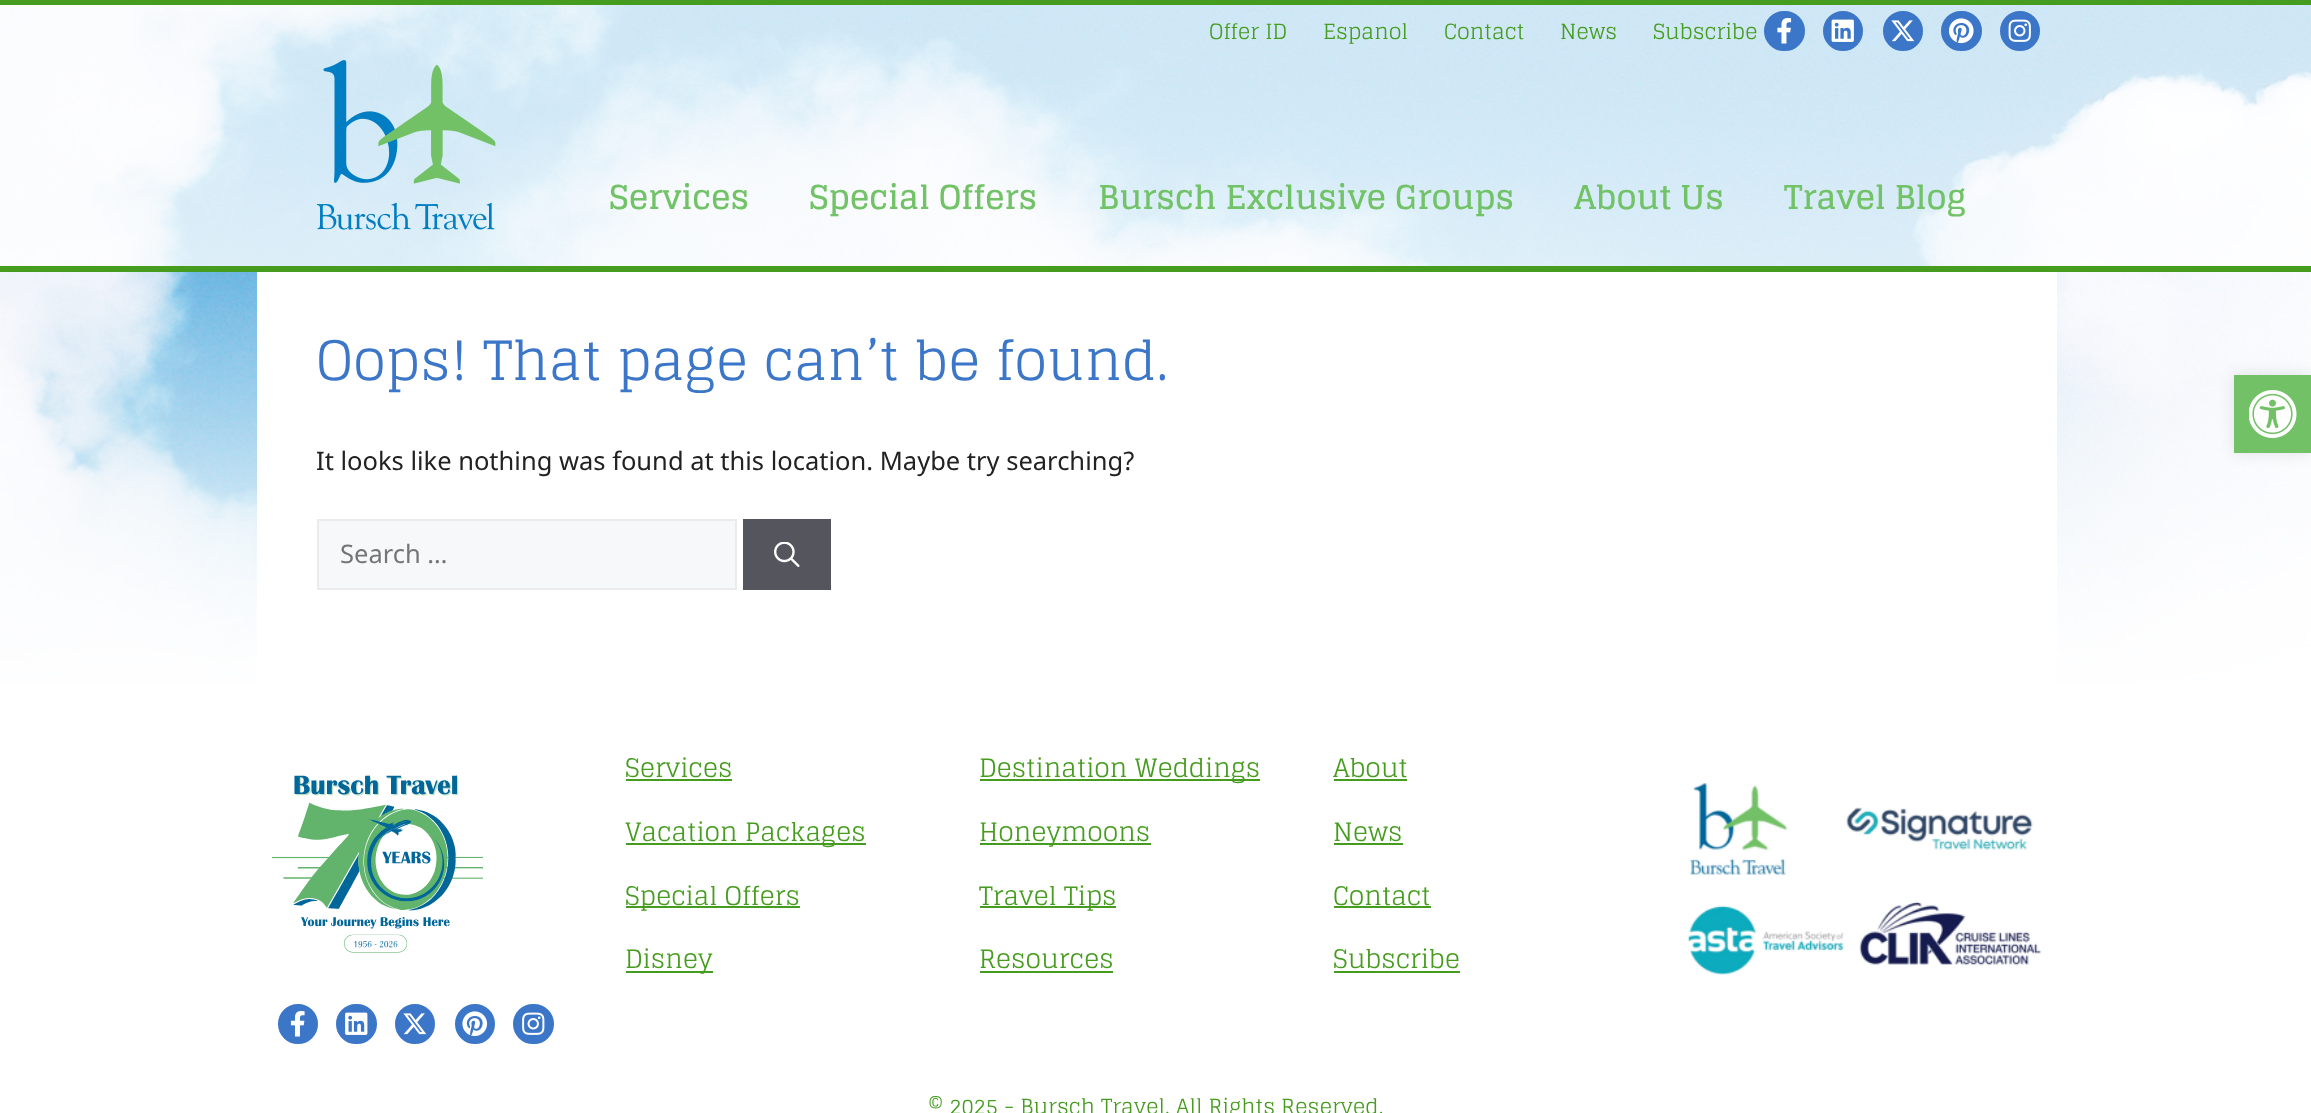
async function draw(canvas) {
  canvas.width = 2311;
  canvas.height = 1113;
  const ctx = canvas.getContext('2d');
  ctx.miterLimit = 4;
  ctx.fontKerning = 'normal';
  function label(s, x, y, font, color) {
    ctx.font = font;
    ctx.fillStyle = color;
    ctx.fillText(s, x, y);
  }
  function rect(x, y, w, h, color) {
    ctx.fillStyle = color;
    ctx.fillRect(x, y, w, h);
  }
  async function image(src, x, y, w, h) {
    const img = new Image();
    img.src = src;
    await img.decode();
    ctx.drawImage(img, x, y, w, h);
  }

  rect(0, 0, 2311, 1113, '#fff');
  await image('assets/img1.png', 0, 5, 2311, 680);
  rect(0, 5, 2311, 88, '#ffffffc4');
  rect(0, 0, 2311, 5, '#469c1f');
  label('Offer ID', 1209, 39, '21px Glegoo', '#469c1f');
  label('Espanol', 1323, 39, '21px Glegoo', '#469c1f');
  label('Contact', 1444, 39, '21px Glegoo', '#469c1f');
  label('News', 1560, 39, '21px Glegoo', '#469c1f');
  label('Subscribe', 1653, 39, '21px Glegoo', '#469c1f');
  ctx.fillStyle = '#3b76c8';
  ctx.beginPath();
  ctx.roundRect(1765, 12, 39, 38, 19);
  ctx.fill();
  ctx.strokeStyle = '#3b76c8';
  ctx.lineWidth = 2;
  ctx.stroke();
  await image('assets/img2.png', 1777, 18, 15, 26);
  ctx.beginPath();
  ctx.arc(1843, 31, 19, 0, 2 * Math.PI);
  ctx.fill();
  ctx.stroke();
  await image('assets/img3.png', 1831, 19, 23, 23);
  ctx.beginPath();
  ctx.arc(1903, 31, 19, 0, 2 * Math.PI);
  ctx.fill();
  ctx.stroke();
  await image('assets/img4.png', 1891, 20, 24, 22);
  ctx.beginPath();
  ctx.roundRect(1942, 12, 39, 38, 19);
  ctx.fill();
  ctx.stroke();
  await image('assets/img5.png', 1949, 18, 25, 26);
  ctx.beginPath();
  ctx.arc(2020, 31, 19, 0, 2 * Math.PI);
  ctx.fill();
  ctx.stroke();
  await image('assets/img6.png', 2008, 19, 23, 23);
  rect(0, 93, 2311, 173, '#ffffffc4');
  rect(0, 266, 2311, 6, '#469c1f');
  await image('assets/img7.png', 317, 60, 179, 170);
  label('Services', 609, 209, 'bold 33px Glegoo', '#72c267');
  label('Special Offers', 809, 209, 'bold 33px Glegoo', '#72c267');
  label('Bursch Exclusive Groups', 1098, 209, 'bold 33px Glegoo', '#72c267');
  label('About Us', 1574, 209, 'bold 33px Glegoo', '#72c267');
  label('Travel Blog', 1784, 209, 'bold 33px Glegoo', '#72c267');
  rect(257, 272, 1800, 413, '#fff');
  label('Oops! That page can’t be found.', 316, 380, '54px Glegoo', '#3b76c8');
  label('It looks like nothing was found at this location. Maybe try searching?', 316, 470, '25.5px Noto Sans', '#222');
  ctx.fillStyle = '#f7f8f9';
  ctx.beginPath();
  ctx.rect(318, 520, 418, 69);
  ctx.fill();
  ctx.strokeStyle = '#ebebeb';
  ctx.stroke();
  label('Search …', 340, 563, '25.5px Noto Sans', '#757575');
  rect(743, 519, 88, 71, '#55555e');
  await image('assets/img8.png', 774, 542, 26, 25);
  ctx.fillStyle = '#0000001a';
  ctx.filter = 'blur(7.5px)';
  ctx.beginPath();
  ctx.rect(2234, 375, 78, 78);
  ctx.fill();
  ctx.filter = 'none';
  rect(2234, 375, 77, 78, '#73c167');
  await image('assets/img9.png', 2249, 390, 48, 48);
  await image('assets/img10.png', 272, 775, 211, 178);
  ctx.fillStyle = '#3b76c8';
  ctx.beginPath();
  ctx.arc(298, 1024, 19, 0, 2 * Math.PI);
  ctx.fill();
  ctx.strokeStyle = '#3b76c8';
  ctx.stroke();
  await image('assets/img11.png', 290, 1011, 15, 26);
  ctx.beginPath();
  ctx.roundRect(337, 1005, 39, 38, 19);
  ctx.fill();
  ctx.stroke();
  await image('assets/img12.png', 345, 1012, 23, 23);
  ctx.beginPath();
  ctx.arc(415, 1024, 19, 0, 2 * Math.PI);
  ctx.fill();
  ctx.stroke();
  await image('assets/img4.png', 403, 1013, 24, 22);
  ctx.beginPath();
  ctx.arc(475, 1024, 19, 0, 2 * Math.PI);
  ctx.fill();
  ctx.stroke();
  await image('assets/img13.png', 462, 1011, 26, 26);
  ctx.beginPath();
  ctx.roundRect(514, 1005, 39, 38, 19);
  ctx.fill();
  ctx.stroke();
  await image('assets/img14.png', 522, 1012, 23, 23);
  label('Services', 625, 777, '25.5px Glegoo', '#469c1f');
  rect(626, 779, 106, 2, '#469c1f');
  rect(626, 843, 240, 2, '#469c1f');
  label('Vacation Packages', 625, 841, '25.5px Glegoo', '#469c1f');
  rect(626, 906, 174, 2, '#469c1f');
  label('Special Offers', 625, 905, '25.5px Glegoo', '#469c1f');
  rect(626, 971, 87, 2, '#469c1f');
  label('Disney', 625, 968, '25.5px Glegoo', '#469c1f');
  rect(980, 779, 280, 2, '#469c1f');
  label('Destination Weddings', 979, 777, '25.5px Glegoo', '#469c1f');
  rect(980, 843, 171, 2, '#469c1f');
  label('Honeymoons', 979, 841, '25.5px Glegoo', '#469c1f');
  rect(980, 906, 136, 2, '#469c1f');
  label('Travel Tips', 979, 905, '25.5px Glegoo', '#469c1f');
  label('Resources', 979, 968, '25.5px Glegoo', '#469c1f');
  rect(980, 971, 133, 2, '#469c1f');
  label('About', 1333, 777, '25.5px Glegoo', '#469c1f');
  rect(1334, 779, 73, 2, '#469c1f');
  label('News', 1333, 841, '25.5px Glegoo', '#469c1f');
  rect(1334, 843, 69, 2, '#469c1f');
  label('Contact', 1333, 905, '25.5px Glegoo', '#469c1f');
  rect(1334, 906, 97, 2, '#469c1f');
  label('Subscribe', 1333, 968, '25.5px Glegoo', '#469c1f');
  rect(1334, 971, 126, 2, '#469c1f');
  await image('assets/img15.png', 1687, 783, 355, 192);
  label('© 2025 - Bursch Travel. All Rights Reserved.', 928, 1114, '21px Glegoo', '#469c1f');
}

draw(document.querySelector('canvas'));
